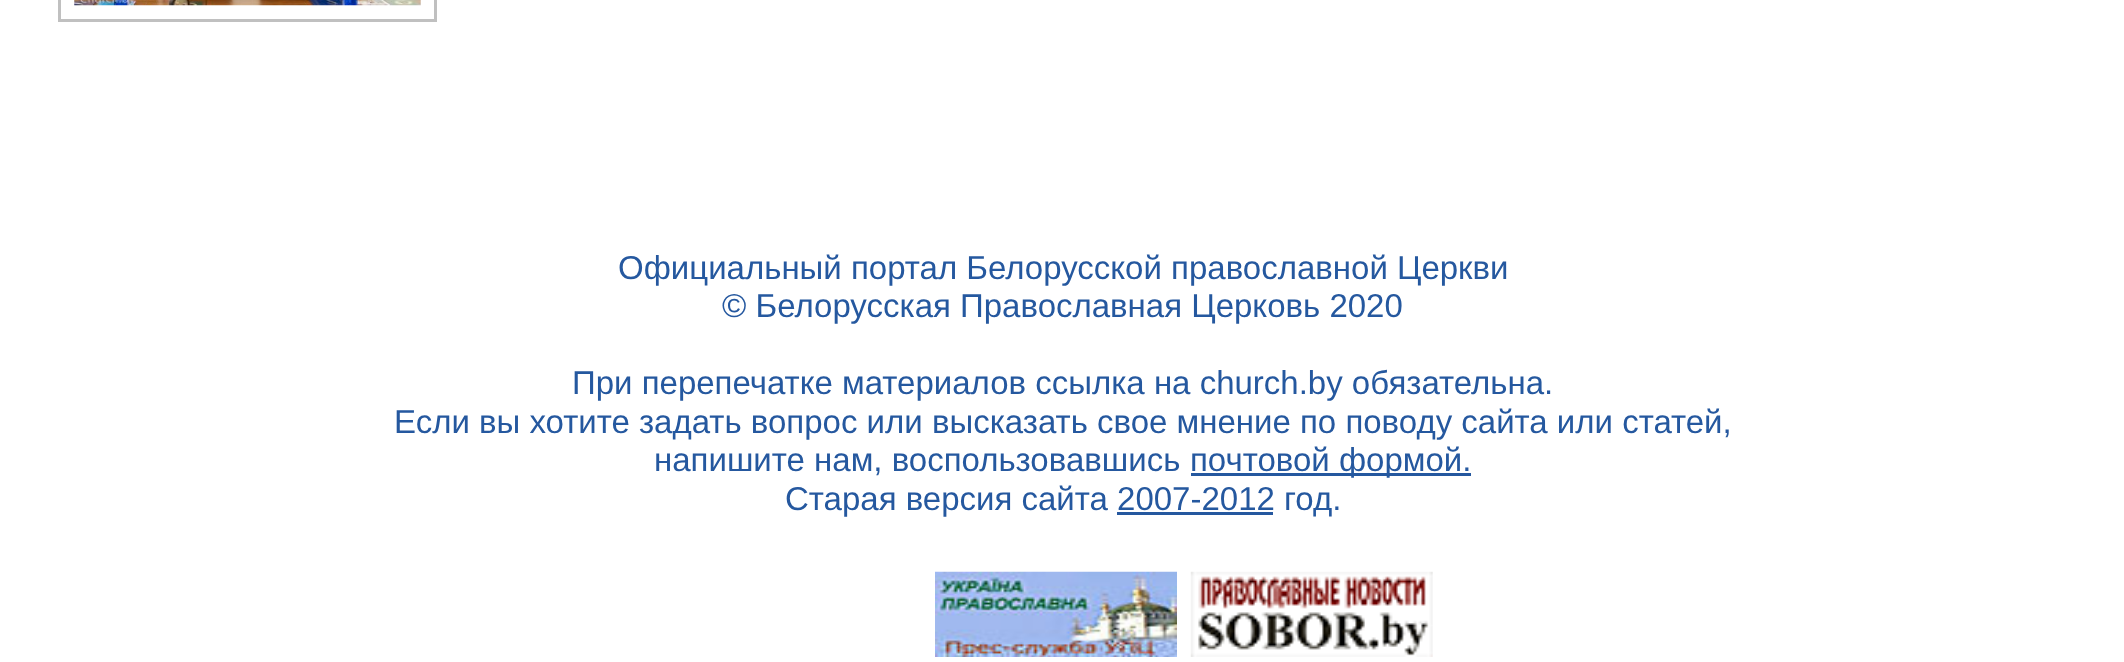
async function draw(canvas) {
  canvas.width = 2124;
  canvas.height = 662;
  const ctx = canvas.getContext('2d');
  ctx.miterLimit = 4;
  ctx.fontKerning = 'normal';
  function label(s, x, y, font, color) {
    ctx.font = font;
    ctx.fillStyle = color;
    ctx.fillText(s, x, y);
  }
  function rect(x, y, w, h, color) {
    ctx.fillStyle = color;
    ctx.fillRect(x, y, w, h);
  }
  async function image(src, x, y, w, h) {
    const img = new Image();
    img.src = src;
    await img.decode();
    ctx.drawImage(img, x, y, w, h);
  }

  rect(0, 0, 2124, 662, '#fff');
  ctx.strokeStyle = '#c0c0c0';
  ctx.lineWidth = 3;
  ctx.strokeRect(59.5, -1.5, 376, 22);
  await image('assets/img1.png', 74, 0, 347, 6);
  label('Официальный портал Белорусской православной Церкви', 618, 279, '33px Liberation Sans', '#25589f');
  label('© Белорусская Православная Церковь 2020', 722, 317, '33px Liberation Sans', '#25589f');
  label('При перепечатке материалов ссылка на church.by обязательна.', 572, 394, '33px Liberation Sans', '#25589f');
  label('Если вы хотите задать вопрос или высказать свое мнение по поводу сайта или статей,', 394, 433, '33px Liberation Sans', '#25589f');
  label('напишите нам, воспользовавшись', 654, 471, '33px Liberation Sans', '#25589f');
  rect(1191, 473, 280, 3, '#25589f');
  label('почтовой формой.', 1190, 471, '33px Liberation Sans', '#25589f');
  label('Старая версия сайта 2007-2012 год.', 785, 510, '33px Liberation Sans', '#25589f');
  rect(1117, 512, 156, 3, '#25589f');
  await image('assets/img2.png', 935, 571, 242, 86);
  await image('assets/img3.png', 1190, 571, 243, 86);
}

draw(document.querySelector('canvas'));
